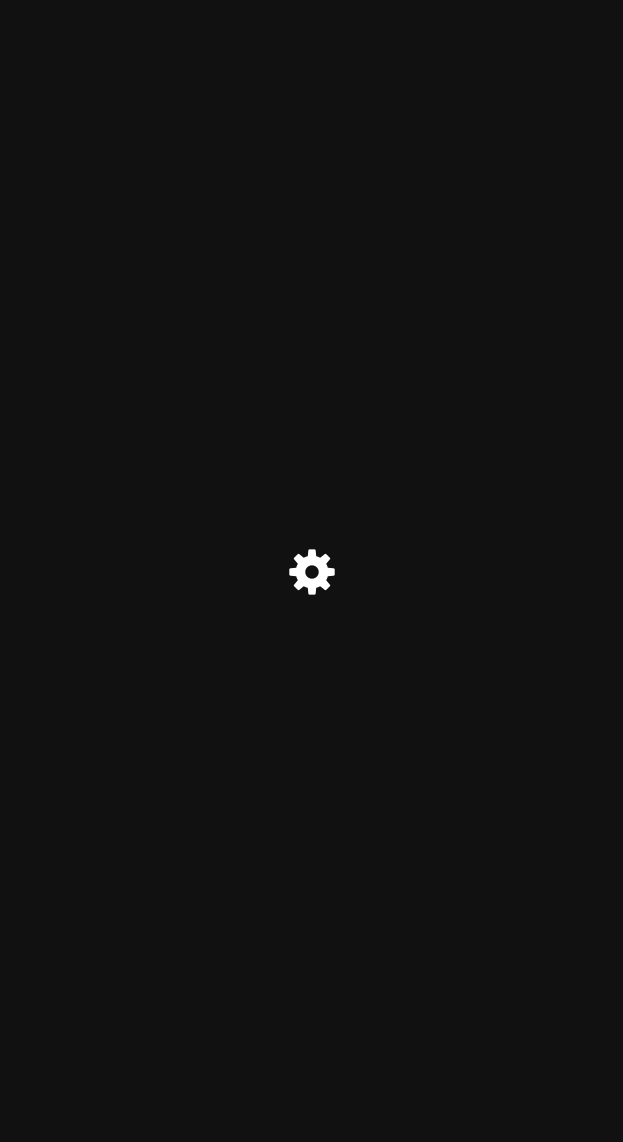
async function draw(canvas) {
  canvas.width = 623;
  canvas.height = 1142;
  const ctx = canvas.getContext('2d');
  ctx.miterLimit = 4;
  ctx.fontKerning = 'normal';
  function rect(x, y, w, h, color) {
    ctx.fillStyle = color;
    ctx.fillRect(x, y, w, h);
  }
  async function image(src, x, y, w, h) {
    const img = new Image();
    img.src = src;
    await img.decode();
    ctx.drawImage(img, x, y, w, h);
  }

  rect(0, 0, 623, 1142, '#111');
  await image('assets/img1.png', 289, 549, 46, 46);
}

draw(document.querySelector('canvas'));
